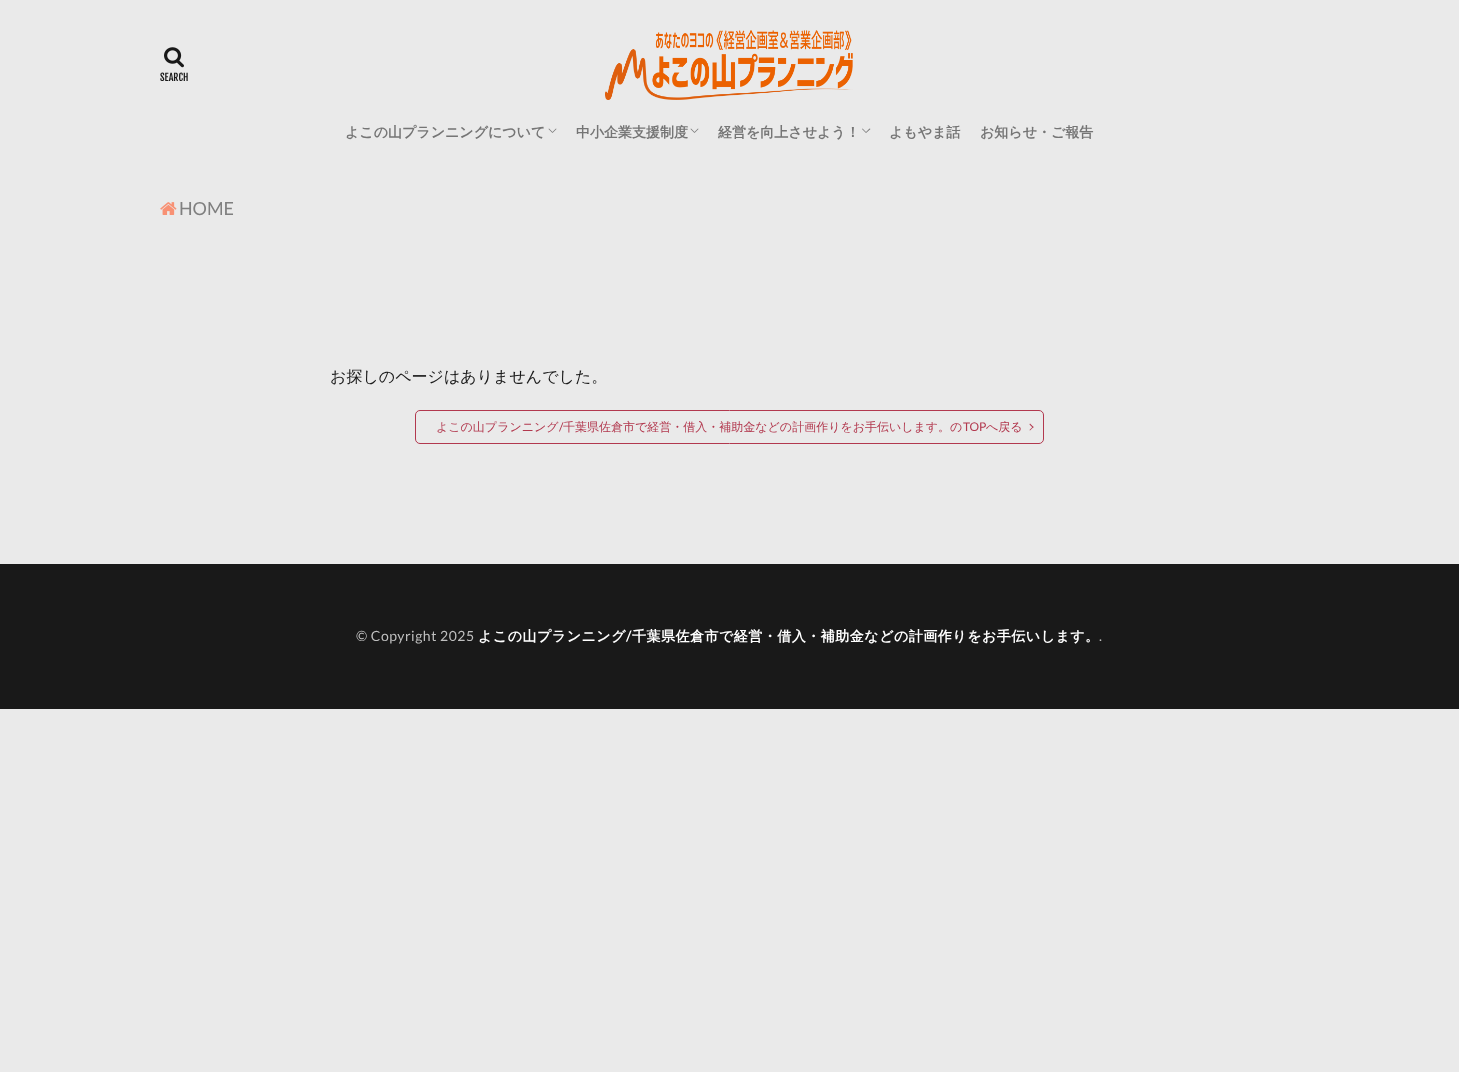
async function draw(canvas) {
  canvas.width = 1459;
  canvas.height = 1072;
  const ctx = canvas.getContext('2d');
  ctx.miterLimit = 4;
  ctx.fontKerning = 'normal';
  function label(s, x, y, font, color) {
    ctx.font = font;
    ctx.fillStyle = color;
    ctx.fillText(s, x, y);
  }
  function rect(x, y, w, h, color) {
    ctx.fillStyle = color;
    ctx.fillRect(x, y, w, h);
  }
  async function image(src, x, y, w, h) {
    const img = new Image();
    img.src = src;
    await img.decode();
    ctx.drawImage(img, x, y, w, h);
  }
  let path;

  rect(0, 0, 1459, 1072, '#eaeaea');
  await image('assets/img1.png', 164, 47, 20, 21);
  label('SEARCH', 160, 81, '10px Fjalla One', '#191919');
  await image('assets/img2.png', 605, 30, 248, 70);
  label('よこの山プランニングについて', 345, 137, 'bold 14px WenQuanYi Zen Hei', '#757575');
  path = new Path2D('M556.5 129L552.5 133V132L556 128.5Z');
  ctx.fill(path);
  ctx.fillStyle = '#00000080';
  path = new Path2D('M552.5 133L548.5 129L549 128.5L552.5 132Z');
  ctx.fill(path);
  label('中小企業支援制度', 576, 137, 'bold 14px WenQuanYi Zen Hei', '#757575');
  path = new Path2D('M698.5 129L694.5 133V132L698 128.5Z');
  ctx.fill(path);
  ctx.fillStyle = '#00000080';
  path = new Path2D('M694.5 133L690.5 129L691 128.5L694.5 132Z');
  ctx.fill(path);
  label('経営を向上させよう！', 718, 137, 'bold 14px WenQuanYi Zen Hei', '#757575');
  path = new Path2D('M870.5 129L866 133V132L869.5 128.5ZM866 133L862 129L862.5 128.5L866 132Z');
  ctx.fill(path);
  label('よもやま話', 889, 137, 'bold 14px WenQuanYi Zen Hei', '#757575');
  label('お知らせ・ご報告', 980, 137, 'bold 14px WenQuanYi Zen Hei', '#757575');
  await image('assets/img3.png', 160, 202, 17, 13);
  label('HOME', 179, 215, '18px Lato', '#7f7f7f');
  label('お探しのページはありませんでした。', 330, 382, '500 16px WenQuanYi Zen Hei', '#191919');
  ctx.beginPath();
  ctx.roundRect(415.5, 410.5, 628, 33, 4.5);
  ctx.strokeStyle = '#b2384e';
  ctx.stroke();
  label('よこの山プランニング', 436, 431, '500 12px WenQuanYi Zen Hei', '#b2384e');
  label('/', 559, 431, '12px Lato', '#b2384e');
  label('千葉県佐倉市で経営・借入・補助金などの計画作りをお手伝いします。の', 563, 431, '500 12px WenQuanYi Zen Hei', '#b2384e');
  label('TOP', 963, 431, '12px Lato', '#b2384e');
  label('へ戻る', 986, 431, '500 12px WenQuanYi Zen Hei', '#b2384e');
  path = new Path2D('M1030 423.5L1033.5 427L1033 428L1029.5 424.5Z');
  ctx.fill(path);
  path = new Path2D('M1033 426.5L1033.5 427L1030 430.5L1029.5 430Z');
  ctx.fill(path);
  rect(0, 564, 1459, 145, '#191919');
  ctx.letterSpacing = '0.5px';
  label('© Copyright 2025', 356, 641, '14px Lato', '#bfbfbf');
  label('よこの山プランニング', 478, 641, 'bold 14px WenQuanYi Zen Hei', '#fff');
  label('/', 626, 641, 'bold 14px Lato', '#fff');
  label('千葉県佐倉市で経営・借入・補助金などの計画作りをお手伝いします。', 632, 641, 'bold 14px WenQuanYi Zen Hei', '#fff');
  label('.', 1099, 641, '14px Lato', '#bfbfbf');
}

draw(document.querySelector('canvas'));
